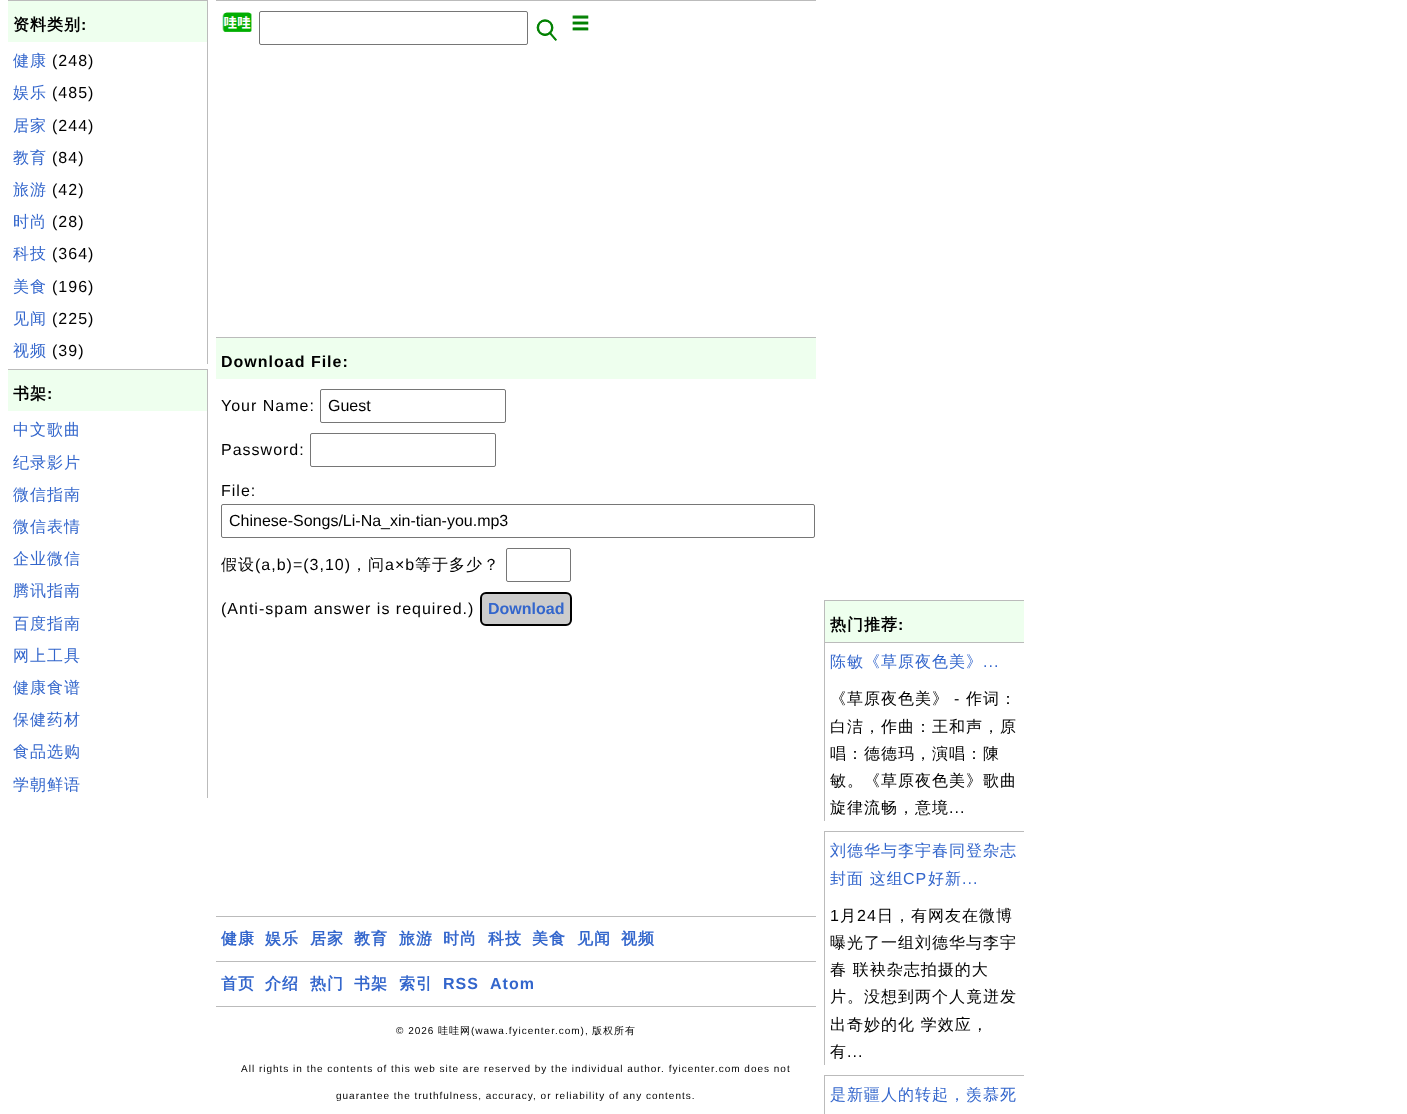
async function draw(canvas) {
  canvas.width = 1407;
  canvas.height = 1114;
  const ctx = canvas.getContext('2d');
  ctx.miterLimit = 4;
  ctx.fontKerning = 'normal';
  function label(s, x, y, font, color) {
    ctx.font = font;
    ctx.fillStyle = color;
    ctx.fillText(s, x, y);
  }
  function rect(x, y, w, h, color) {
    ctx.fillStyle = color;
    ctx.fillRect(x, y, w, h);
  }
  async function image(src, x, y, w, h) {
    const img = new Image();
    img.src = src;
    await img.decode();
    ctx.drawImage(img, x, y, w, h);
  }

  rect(0, 0, 1407, 1114, '#fff');
  rect(8, 0, 200, 1, '#bbb');
  rect(207, 0, 1, 364, '#bbb');
  rect(8, 1, 199, 41, '#efe');
  ctx.letterSpacing = '1px';
  label('资料类别', 13, 30, 'bold 16px WenQuanYi Zen Hei', '#000');
  label(':', 81, 30, 'bold 16px Liberation Sans', '#000');
  label('健康', 13, 66, '500 16px WenQuanYi Zen Hei', '#36c');
  label('(248)', 52, 66, '16px Liberation Sans', '#000');
  label('娱乐', 13, 98, '500 16px WenQuanYi Zen Hei', '#36c');
  label('(485)', 52, 98, '16px Liberation Sans', '#000');
  label('居家', 13, 131, '500 16px WenQuanYi Zen Hei', '#36c');
  label('(244)', 52, 131, '16px Liberation Sans', '#000');
  label('教育', 13, 163, '500 16px WenQuanYi Zen Hei', '#36c');
  label('(84)', 52, 163, '16px Liberation Sans', '#000');
  label('旅游', 13, 195, '500 16px WenQuanYi Zen Hei', '#36c');
  label('(42)', 52, 195, '16px Liberation Sans', '#000');
  label('时尚', 13, 227, '500 16px WenQuanYi Zen Hei', '#36c');
  label('(28)', 52, 227, '16px Liberation Sans', '#000');
  label('科技', 13, 259, '500 16px WenQuanYi Zen Hei', '#36c');
  label('(364)', 52, 259, '16px Liberation Sans', '#000');
  label('美食', 13, 292, '500 16px WenQuanYi Zen Hei', '#36c');
  label('(196)', 52, 292, '16px Liberation Sans', '#000');
  label('见闻', 13, 324, '500 16px WenQuanYi Zen Hei', '#36c');
  label('(225)', 52, 324, '16px Liberation Sans', '#000');
  label('视频', 13, 356, '500 16px WenQuanYi Zen Hei', '#36c');
  label('(39)', 52, 356, '16px Liberation Sans', '#000');
  rect(8, 369, 200, 1, '#bbb');
  rect(207, 369, 1, 429, '#bbb');
  rect(8, 370, 199, 41, '#efe');
  label('书架', 13, 399, 'bold 16px WenQuanYi Zen Hei', '#000');
  label(':', 47, 399, 'bold 16px Liberation Sans', '#000');
  label('中文歌曲', 13, 435, '500 16px WenQuanYi Zen Hei', '#36c');
  label('纪录影片', 13, 468, '500 16px WenQuanYi Zen Hei', '#36c');
  label('微信指南', 13, 500, '500 16px WenQuanYi Zen Hei', '#36c');
  label('微信表情', 13, 532, '500 16px WenQuanYi Zen Hei', '#36c');
  label('企业微信', 13, 564, '500 16px WenQuanYi Zen Hei', '#36c');
  label('腾讯指南', 13, 596, '500 16px WenQuanYi Zen Hei', '#36c');
  label('百度指南', 13, 629, '500 16px WenQuanYi Zen Hei', '#36c');
  label('网上工具', 13, 661, '500 16px WenQuanYi Zen Hei', '#36c');
  label('健康食谱', 13, 693, '500 16px WenQuanYi Zen Hei', '#36c');
  label('保健药材', 13, 725, '500 16px WenQuanYi Zen Hei', '#36c');
  label('食品选购', 13, 757, '500 16px WenQuanYi Zen Hei', '#36c');
  label('学朝鲜语', 13, 790, '500 16px WenQuanYi Zen Hei', '#36c');
  rect(216, 0, 600, 1, '#bbb');
  await image('assets/img1.png', 222, 12, 30, 20);
  ctx.beginPath();
  ctx.roundRect(259.5, 11.5, 268, 33, 1.5);
  ctx.strokeStyle = '#767676';
  ctx.stroke();
  await image('assets/img2.png', 536, 19, 21, 22);
  await image('assets/img3.png', 572, 15, 17, 16);
  rect(216, 337, 600, 1, '#bbb');
  rect(216, 338, 600, 41, '#efe');
  label('Download File:', 221, 367, 'bold 16px Liberation Sans', '#000');
  label('Your Name:', 221, 411, '16px Liberation Sans', '#000');
  ctx.beginPath();
  ctx.roundRect(320.5, 389.5, 185, 33, 1.5);
  ctx.stroke();
  ctx.letterSpacing = '0px';
  label('Guest', 328, 411, '16px Liberation Sans', '#000');
  ctx.letterSpacing = '1px';
  label('Password:', 221, 455, '16px Liberation Sans', '#000');
  ctx.beginPath();
  ctx.roundRect(310.5, 433.5, 185, 33, 1.5);
  ctx.stroke();
  label('File:', 221, 496, '16px Liberation Sans', '#000');
  ctx.beginPath();
  ctx.roundRect(221.5, 504.5, 593, 33, 1.5);
  ctx.stroke();
  ctx.letterSpacing = '0px';
  label('Chinese-Songs/Li-Na_xin-tian-you.mp3', 229, 526, '16px Liberation Sans', '#000');
  ctx.letterSpacing = '1px';
  label('假设', 221, 570, '500 16px WenQuanYi Zen Hei', '#000');
  label('(a,b)=(3,10)', 255, 570, '16px Liberation Sans', '#000');
  label('，问', 351, 570, '500 16px WenQuanYi Zen Hei', '#000');
  label('a×b', 385, 570, '16px Liberation Sans', '#000');
  label('等于多少？', 415, 570, '500 16px WenQuanYi Zen Hei', '#000');
  ctx.beginPath();
  ctx.roundRect(506.5, 548.5, 64, 33, 1.5);
  ctx.stroke();
  label('(Anti-spam answer is required.)', 221, 614, '16px Liberation Sans', '#000');
  ctx.fillStyle = '#ccc';
  ctx.beginPath();
  ctx.roundRect(481, 593, 90, 32, 5);
  ctx.fill();
  ctx.strokeStyle = '#000';
  ctx.lineWidth = 2;
  ctx.stroke();
  ctx.letterSpacing = '0px';
  label('Download', 488, 614, 'bold 16px Liberation Sans', '#36c');
  rect(216, 916, 600, 1, '#bbb');
  ctx.letterSpacing = '1px';
  label('健康', 221, 944, 'bold 16px WenQuanYi Zen Hei', '#36c');
  label('娱乐', 265, 944, 'bold 16px WenQuanYi Zen Hei', '#36c');
  label('居家', 310, 944, 'bold 16px WenQuanYi Zen Hei', '#36c');
  label('教育', 354, 944, 'bold 16px WenQuanYi Zen Hei', '#36c');
  label('旅游', 399, 944, 'bold 16px WenQuanYi Zen Hei', '#36c');
  label('时尚', 443, 944, 'bold 16px WenQuanYi Zen Hei', '#36c');
  label('科技', 488, 944, 'bold 16px WenQuanYi Zen Hei', '#36c');
  label('美食', 532, 944, 'bold 16px WenQuanYi Zen Hei', '#36c');
  label('见闻', 577, 944, 'bold 16px WenQuanYi Zen Hei', '#36c');
  label('视频', 621, 944, 'bold 16px WenQuanYi Zen Hei', '#36c');
  rect(216, 961, 600, 1, '#bbb');
  label('首页', 221, 989, 'bold 16px WenQuanYi Zen Hei', '#36c');
  label('介绍', 265, 989, 'bold 16px WenQuanYi Zen Hei', '#36c');
  label('热门', 310, 989, 'bold 16px WenQuanYi Zen Hei', '#36c');
  label('书架', 354, 989, 'bold 16px WenQuanYi Zen Hei', '#36c');
  label('索引', 399, 989, 'bold 16px WenQuanYi Zen Hei', '#36c');
  label('RSS', 443, 989, 'bold 16px Liberation Sans', '#36c');
  label('Atom', 490, 989, 'bold 16px Liberation Sans', '#36c');
  rect(216, 1006, 600, 1, '#bbb');
  label('© 2026', 396, 1034, '10px Liberation Sans', '#000');
  label('哇哇网', 438, 1034, '500 10px WenQuanYi Zen Hei', '#000');
  label('(wawa.fyicenter.com),', 471, 1034, '10px Liberation Sans', '#000');
  label('版权所有', 592, 1034, '500 10px WenQuanYi Zen Hei', '#000');
  label('All rights in the contents of this web site are reserved by the individual author. fyicenter.com does not', 241, 1072, '10px Liberation Sans', '#000');
  label('guarantee the truthfulness, accuracy, or reliability of any contents.', 336, 1099, '10px Liberation Sans', '#000');
  rect(824, 600, 200, 1, '#bbb');
  rect(824, 600, 1, 42, '#bbb');
  rect(825, 601, 199, 41, '#efe');
  label('热门推荐', 830, 630, 'bold 16px WenQuanYi Zen Hei', '#000');
  label(':', 898, 630, 'bold 16px Liberation Sans', '#000');
  rect(824, 642, 200, 1, '#bbb');
  rect(824, 642, 1, 179, '#bbb');
  label('陈敏《草原夜色美》', 830, 667, '500 16px WenQuanYi Zen Hei', '#36c');
  label('...', 983, 667, '16px Liberation Sans', '#36c');
  label('《草原夜色美》', 830, 704, '500 16px WenQuanYi Zen Hei', '#000');
  label('-', 954, 704, '16px Liberation Sans', '#000');
  label('作词：', 966, 704, '500 16px WenQuanYi Zen Hei', '#000');
  label('白洁，作曲：王和声，原', 830, 732, '500 16px WenQuanYi Zen Hei', '#000');
  label('唱：德德玛，演唱：陳', 830, 759, '500 16px WenQuanYi Zen Hei', '#000');
  label('敏。《草原夜色美》歌曲', 830, 786, '500 16px WenQuanYi Zen Hei', '#000');
  label('旋律流畅，意境', 830, 813, '500 16px WenQuanYi Zen Hei', '#000');
  label('...', 949, 813, '16px Liberation Sans', '#000');
  rect(824, 831, 200, 1, '#bbb');
  rect(824, 831, 1, 234, '#bbb');
  label('刘德华与李宇春同登杂志', 830, 856, '500 16px WenQuanYi Zen Hei', '#36c');
  label('封面 这组', 830, 884, '500 16px WenQuanYi Zen Hei', '#36c');
  label('CP', 903, 884, '16px Liberation Sans', '#36c');
  label('好新', 928, 884, '500 16px WenQuanYi Zen Hei', '#36c');
  label('...', 962, 884, '16px Liberation Sans', '#36c');
  label('1', 830, 921, '16px Liberation Sans', '#000');
  label('月', 840, 921, '500 16px WenQuanYi Zen Hei', '#000');
  label('24', 857, 921, '16px Liberation Sans', '#000');
  label('日，有网友在微博', 877, 921, '500 16px WenQuanYi Zen Hei', '#000');
  label('曝光了一组刘德华与李宇', 830, 948, '500 16px WenQuanYi Zen Hei', '#000');
  label('春 联袂杂志拍摄的大', 830, 975, '500 16px WenQuanYi Zen Hei', '#000');
  label('片。没想到两个人竟迸发', 830, 1002, '500 16px WenQuanYi Zen Hei', '#000');
  label('出奇妙的化 学效应，', 830, 1030, '500 16px WenQuanYi Zen Hei', '#000');
  label('有', 830, 1057, '500 16px WenQuanYi Zen Hei', '#000');
  label('...', 847, 1057, '16px Liberation Sans', '#000');
  rect(824, 1075, 200, 1, '#bbb');
  rect(824, 1075, 1, 39, '#bbb');
  label('是新疆人的转起，羡慕死', 830, 1100, '500 16px WenQuanYi Zen Hei', '#36c');
}

draw(document.querySelector('canvas'));
